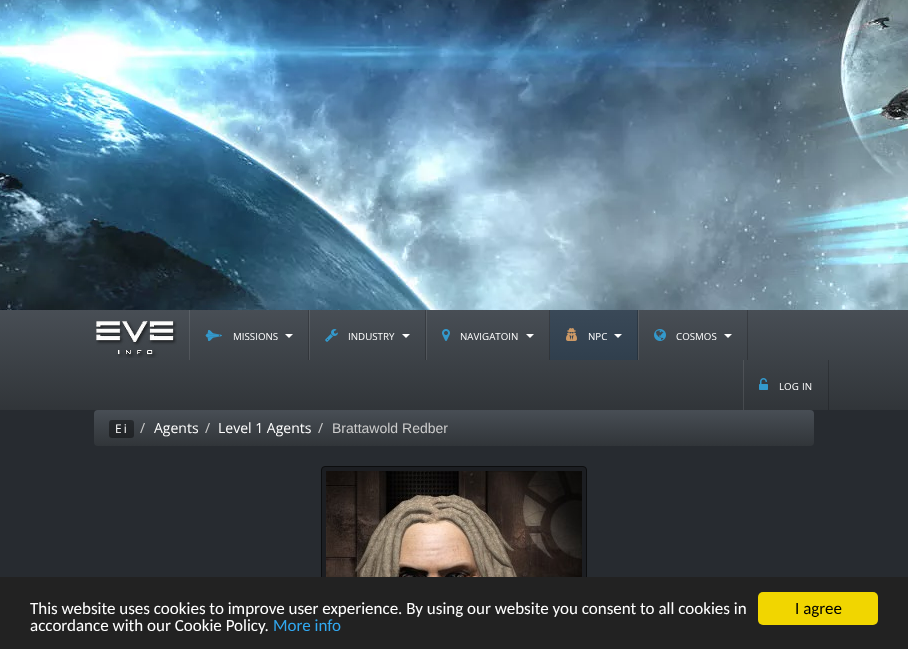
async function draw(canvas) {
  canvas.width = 908;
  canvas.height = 649;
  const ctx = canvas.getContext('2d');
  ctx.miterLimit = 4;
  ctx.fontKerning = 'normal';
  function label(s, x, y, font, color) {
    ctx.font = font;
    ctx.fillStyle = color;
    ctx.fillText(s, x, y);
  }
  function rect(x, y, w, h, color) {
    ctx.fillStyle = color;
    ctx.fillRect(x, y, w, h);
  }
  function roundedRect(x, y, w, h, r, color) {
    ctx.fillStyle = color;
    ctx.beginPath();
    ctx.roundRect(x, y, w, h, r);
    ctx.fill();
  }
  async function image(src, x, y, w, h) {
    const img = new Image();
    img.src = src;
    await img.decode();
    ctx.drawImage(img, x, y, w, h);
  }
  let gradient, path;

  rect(0, 0, 908, 649, '#272b30');
  await image('assets/img1.png', 0, 0, 908, 310);
  gradient = ctx.createLinearGradient(454, 310, 454, 410);
  gradient.addColorStop(0, '#484e55');
  gradient.addColorStop(0.6, '#3a3f44');
  gradient.addColorStop(1, '#313539');
  ctx.fillStyle = gradient;
  ctx.fillRect(0, 310, 908, 100);
  gradient = ctx.createLinearGradient(454, 310, 454, 410);
  gradient.addColorStop(0, '#3a3e44');
  gradient.addColorStop(0.6, '#2e3236');
  gradient.addColorStop(1, '#272a2e');
  ctx.fillStyle = gradient;
  ctx.fillRect(828, 360, 1, 50);
  gradient = ctx.createLinearGradient(454, 310, 454, 410);
  gradient.addColorStop(0, '#5a6066');
  gradient.addColorStop(0.6, '#4e5257');
  gradient.addColorStop(1, '#46494d');
  ctx.fillStyle = gradient;
  ctx.fillRect(638, 310, 1, 50);
  gradient = ctx.createLinearGradient(454, 310, 454, 410);
  gradient.addColorStop(0, '#3a3e44');
  gradient.addColorStop(0.6, '#2e3236');
  gradient.addColorStop(1, '#272a2e');
  ctx.fillStyle = gradient;
  ctx.fillRect(747, 310, 1, 50);
  gradient = ctx.createLinearGradient(454, 310, 454, 410);
  gradient.addColorStop(0, '#3a4958');
  gradient.addColorStop(0.6, '#2e3d4b');
  gradient.addColorStop(1, '#273542');
  ctx.fillStyle = gradient;
  ctx.fillRect(550, 310, 87, 50);
  gradient = ctx.createLinearGradient(454, 310, 454, 410);
  gradient.addColorStop(0, '#2e3a46');
  gradient.addColorStop(0.6, '#25313c');
  gradient.addColorStop(1, '#1f2a35');
  ctx.fillStyle = gradient;
  ctx.fillRect(637, 310, 1, 50);
  gradient = ctx.createLinearGradient(454, 310, 454, 410);
  gradient.addColorStop(0, '#5a6066');
  gradient.addColorStop(0.6, '#4e5257');
  gradient.addColorStop(1, '#46494d');
  ctx.fillStyle = gradient;
  ctx.fillRect(426, 310, 1, 50);
  gradient = ctx.createLinearGradient(454, 310, 454, 410);
  gradient.addColorStop(0, '#3a3e44');
  gradient.addColorStop(0.6, '#2e3236');
  gradient.addColorStop(1, '#272a2e');
  ctx.fillStyle = gradient;
  ctx.fillRect(549, 310, 1, 50);
  gradient = ctx.createLinearGradient(454, 310, 454, 410);
  gradient.addColorStop(0, '#5a6066');
  gradient.addColorStop(0.6, '#4e5257');
  gradient.addColorStop(1, '#46494d');
  ctx.fillStyle = gradient;
  ctx.fillRect(309, 310, 1, 50);
  gradient = ctx.createLinearGradient(454, 310, 454, 410);
  gradient.addColorStop(0, '#3a3e44');
  gradient.addColorStop(0.6, '#2e3236');
  gradient.addColorStop(1, '#272a2e');
  ctx.fillStyle = gradient;
  ctx.fillRect(425, 310, 1, 50);
  gradient = ctx.createLinearGradient(454, 310, 454, 410);
  gradient.addColorStop(0, '#5a6066');
  gradient.addColorStop(0.6, '#4e5257');
  gradient.addColorStop(1, '#46494d');
  ctx.fillStyle = gradient;
  ctx.fillRect(189, 310, 1, 50);
  gradient = ctx.createLinearGradient(454, 310, 454, 410);
  gradient.addColorStop(0, '#3a3e44');
  gradient.addColorStop(0.6, '#2e3236');
  gradient.addColorStop(1, '#272a2e');
  ctx.fillStyle = gradient;
  ctx.fillRect(308, 310, 1, 50);
  await image('assets/img2.png', 96, 321, 81, 37);
  await image('assets/img3.png', 205, 330, 17, 11);
  label('MISSIONS', 233, 340, '9.75px Open Sans', '#fff');
  path = new Path2D('M285 334H293L289 338Z');
  ctx.fill(path);
  await image('assets/img4.png', 325, 329, 13, 13);
  label('INDUSTRY', 348, 340, '9.75px Open Sans', '#fff');
  path = new Path2D('M402 334H410L406 338Z');
  ctx.fill(path);
  await image('assets/img5.png', 442, 329, 8, 12);
  label('NAVIGATOIN', 460, 340, '9.75px Open Sans', '#fff');
  path = new Path2D('M526 334H534L530 338Z');
  ctx.fill(path);
  await image('assets/img6.png', 566, 328, 11, 13);
  label('NPC', 588, 340, '9.75px Open Sans', '#fff');
  path = new Path2D('M614 334H622L618 338Z');
  ctx.fill(path);
  await image('assets/img7.png', 654, 329, 12, 12);
  label('COSMOS', 676, 340, '9.75px Open Sans', '#fff');
  path = new Path2D('M724 334H732L728 338Z');
  ctx.fill(path);
  rect(743, 360, 1, 50, '#ffffff1a');
  await image('assets/img8.png', 759, 378, 9, 12);
  label('LOG', 779, 390, '9.75px Open Sans', '#fff');
  label('IN', 802, 390, '9.75px Open Sans', '#fff');
  gradient = ctx.createLinearGradient(454, 410, 454, 446);
  gradient.addColorStop(0, '#484e55');
  gradient.addColorStop(0.6, '#3a3f44');
  gradient.addColorStop(1, '#313539');
  ctx.fillStyle = gradient;
  ctx.beginPath();
  ctx.roundRect(94, 410, 720, 36, 4);
  ctx.fill();
  roundedRect(109, 420, 25, 18, 3, '#00000066');
  ctx.letterSpacing = '2px';
  label('Ei', 115, 433, '12px Open Sans', '#fff');
  ctx.letterSpacing = '0px';
  label('/', 140, 433, '14px Open Sans', '#ccc');
  label('Agents', 154, 433, '14px Open Sans', '#fff');
  label('/', 205, 433, '14px Open Sans', '#ccc');
  label('Level 1 Agents', 218, 433, '14px Open Sans', '#fff');
  label('/', 318, 433, '14px Open Sans', '#ccc');
  label('Brattawold Redber', 332, 433, '14px Liberation Sans', '#ccc');
  ctx.fillStyle = '#1c1e22';
  ctx.beginPath();
  ctx.roundRect(321.5, 466.5, 265, 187, 3.5);
  ctx.fill();
  ctx.strokeStyle = '#0c0d0e';
  ctx.stroke();
  await image('assets/img9.png', 326, 471, 256, 106);
  rect(0, 577, 908, 72, '#222');
  label('This website uses cookies to improve user experience. By using our website you consent to all cookies in', 30, 614, '17px Carlito', '#fff');
  label('accordance with our Cookie Policy.', 30, 631, '17px Carlito', '#fff');
  label('More info', 273, 631, '17px Carlito', '#31a8f0');
  roundedRect(758, 592, 120, 33, 5, '#f1d600');
  label('I agree', 795, 614, '17px Carlito', '#000');
}

draw(document.querySelector('canvas'));
